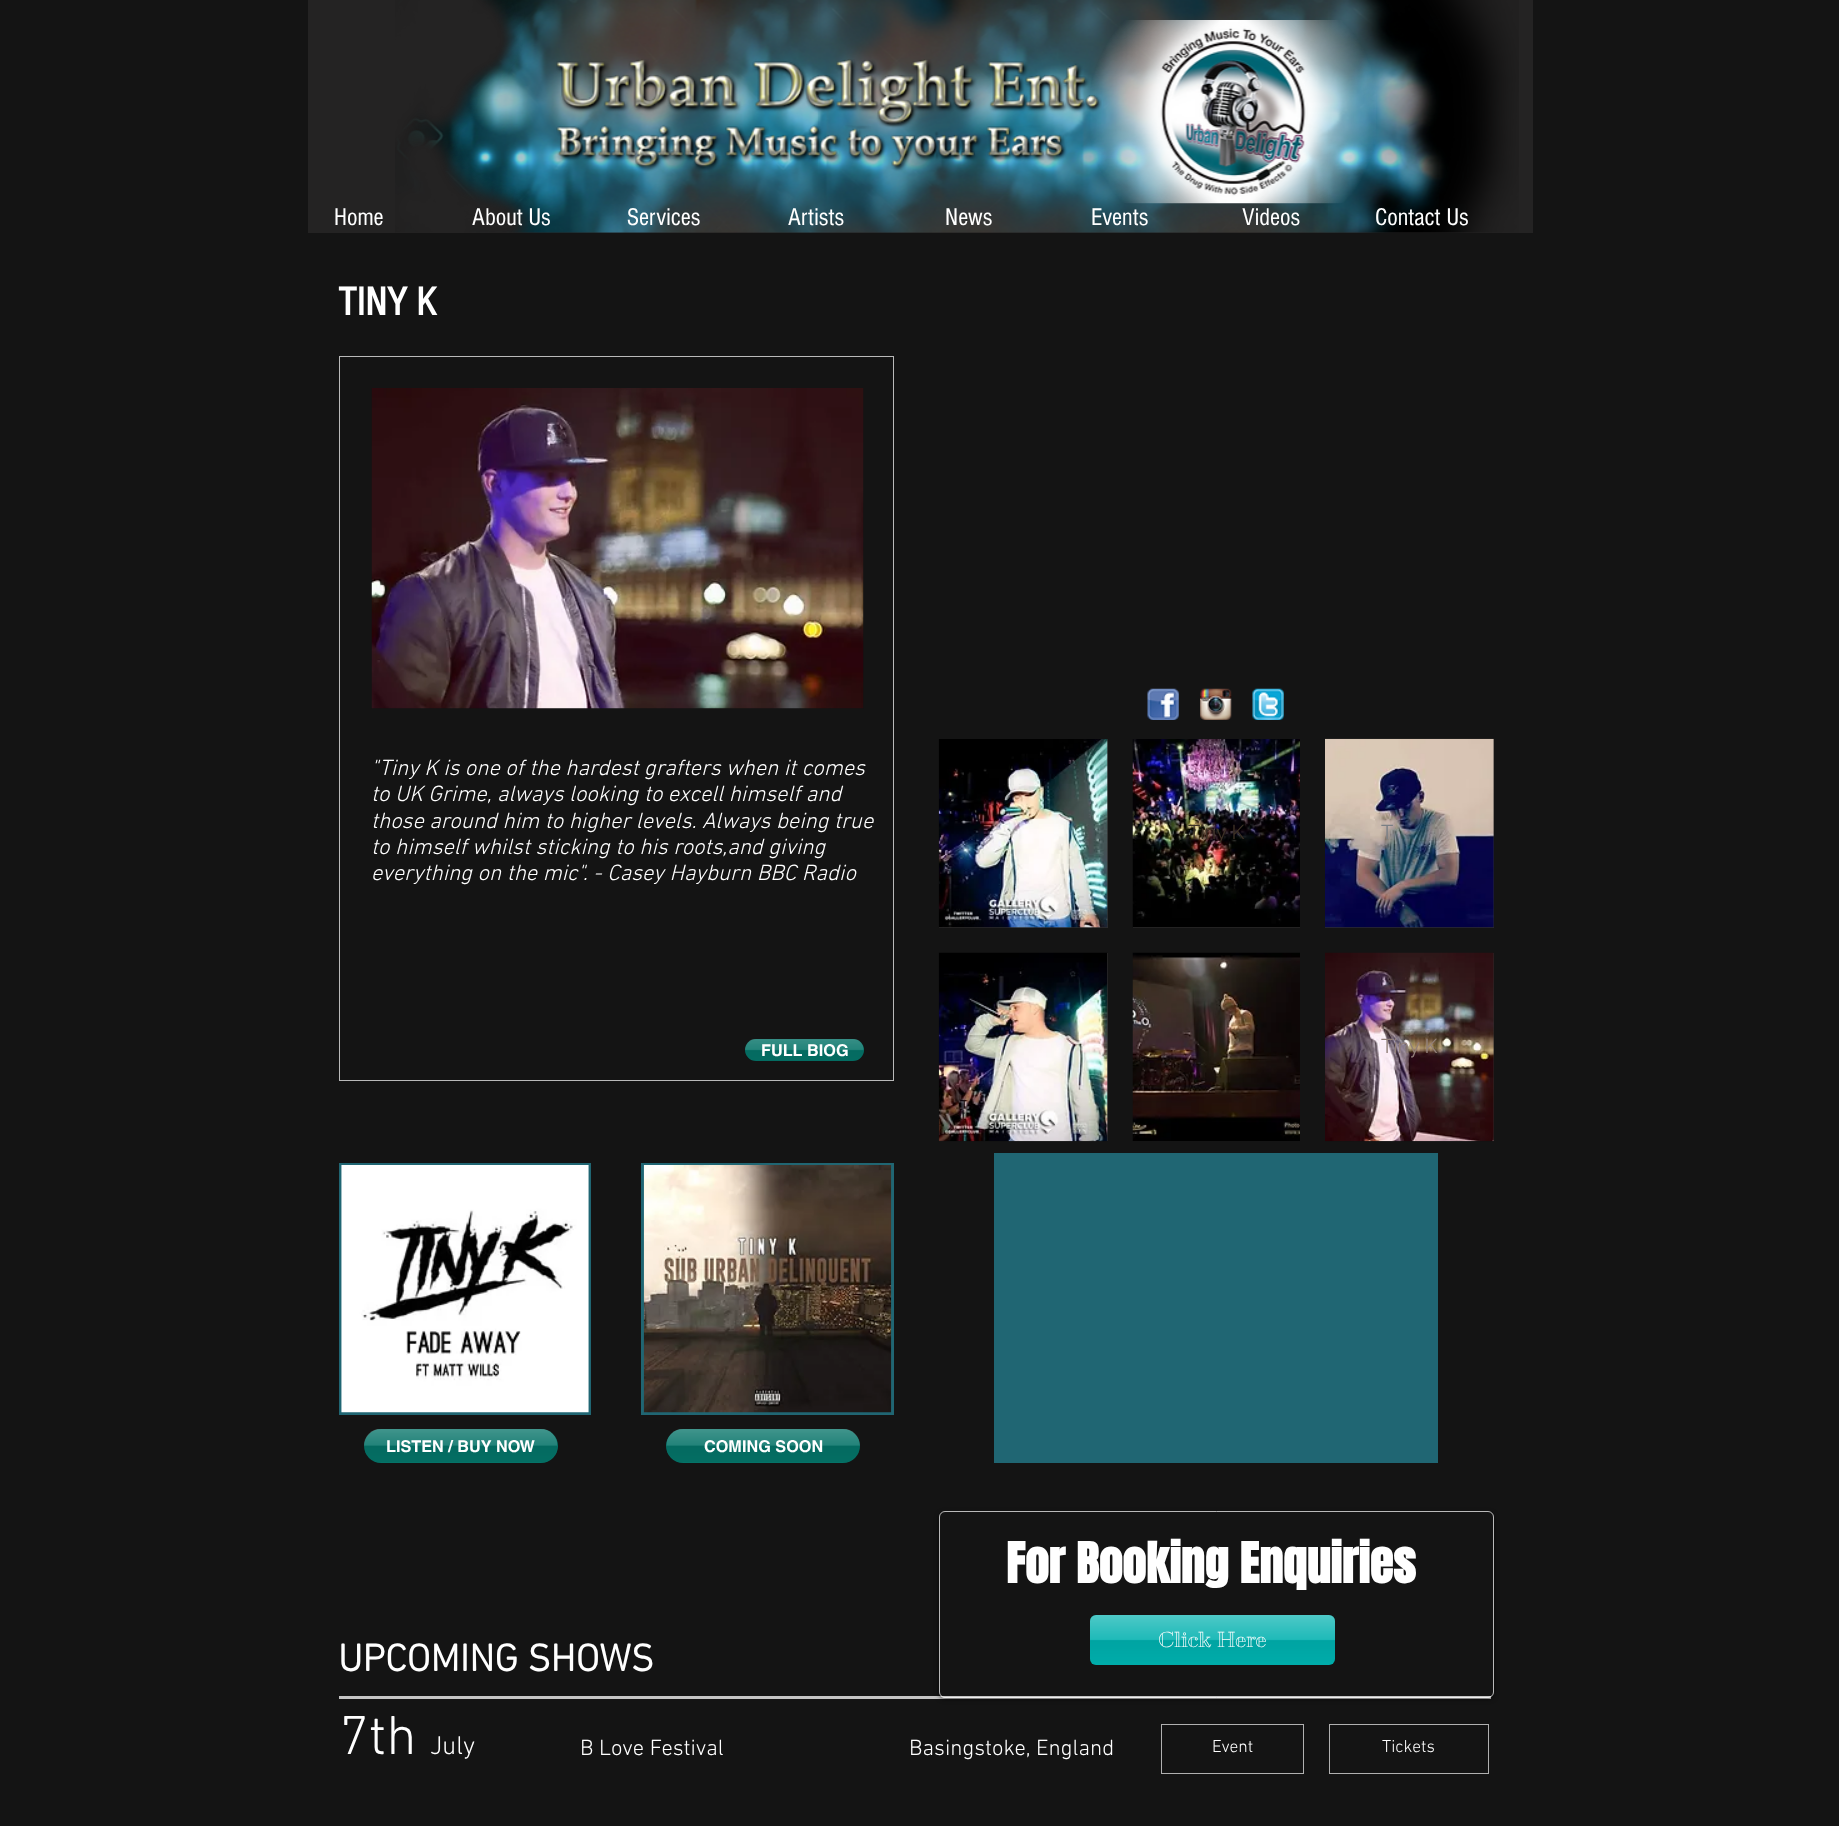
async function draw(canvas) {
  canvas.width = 1839;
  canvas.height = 1826;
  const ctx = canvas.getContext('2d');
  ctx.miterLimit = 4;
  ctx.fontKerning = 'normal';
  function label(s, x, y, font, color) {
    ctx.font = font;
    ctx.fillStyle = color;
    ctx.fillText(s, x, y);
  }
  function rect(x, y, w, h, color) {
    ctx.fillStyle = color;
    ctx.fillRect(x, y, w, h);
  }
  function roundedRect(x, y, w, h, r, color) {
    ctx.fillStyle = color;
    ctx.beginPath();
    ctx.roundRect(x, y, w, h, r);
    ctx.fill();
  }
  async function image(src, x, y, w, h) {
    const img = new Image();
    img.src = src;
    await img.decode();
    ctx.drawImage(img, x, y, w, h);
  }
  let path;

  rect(0, 0, 1839, 1826, '#141414');
  rect(308, 0, 1225, 233, '#242323');
  await image('assets/img1.png', 395, 0, 1124, 233);
  await image('assets/img2.png', 556, 59, 546, 113);
  await image('assets/img3.png', 1090, 20, 286, 184);
  label('Home', 334, 225, '25px "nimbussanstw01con"', '#fff');
  label('About Us', 472, 225, '25px "nimbussanstw01con"', '#fff');
  label('Services', 627, 225, '25px "nimbussanstw01con"', '#fff');
  label('Artists', 788, 225, '25px "nimbussanstw01con"', '#fff');
  label('News', 945, 225, '25px "nimbussanstw01con"', '#fff');
  label('Events', 1091, 225, '25px "nimbussanstw01con"', '#fff');
  label('Videos', 1242, 225, '25px "nimbussanstw01con"', '#fff');
  label('Contact Us', 1375, 225, '25px "nimbussanstw01con"', '#fff');
  label('TINY K', 338, 315, 'bold 41px "nimbussanstw01con"', '#fff');
  await image('assets/img4.png', 1147, 688, 32, 32);
  await image('assets/img5.png', 1200, 688, 32, 32);
  await image('assets/img6.png', 1252, 688, 32, 32);
  ctx.strokeStyle = '#b9b9b9';
  ctx.strokeRect(339.5, 356.5, 554, 724);
  await image('assets/img7.png', 371, 388, 493, 321);
  label('"Tiny K is one of the hardest grafters when it comes', 371, 775, 'italic 300 22.5px "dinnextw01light"', '#fff');
  label('to UK Grime, always looking to excell himself and', 371, 801, 'italic 300 22.5px "dinnextw01light"', '#fff');
  label('those around him to higher levels. Always being true', 371, 828, 'italic 300 22.5px "dinnextw01light"', '#fff');
  label('to himself whilst sticking to his roots,and giving', 371, 854, 'italic 300 22.5px "dinnextw01light"', '#fff');
  label('everything on the mic". - Casey Hayburn BBC Radio', 371, 880, 'italic 300 22.5px "dinnextw01light"', '#fff');
  roundedRect(745, 1039, 119, 22, 11, '#057368');
  await image('assets/img8.png', 745, 1039, 119, 22);
  label('FULL BIOG', 761, 1056, 'bold 16.25px helvetica', '#fff');
  rect(939, 739, 169, 189, '#2f2e2e');
  await image('assets/img9.png', 938, 739, 170, 189);
  rect(1133, 927, 167, 1, '#2f2e2e');
  await image('assets/img10.png', 1132, 739, 168, 189);
  label('Tiny K', 1188, 839, '20px Raleway', '#3d3126');
  rect(1325, 739, 169, 189, '#2f2e2e');
  await image('assets/img11.png', 1325, 738, 169, 190);
  label('T', 1381, 839, '20px Raleway', '#797f85');
  rect(1107, 953, 1, 188, '#2f2e2e');
  await image('assets/img12.png', 938, 952, 170, 190);
  await image('assets/img13.png', 1132, 952, 168, 189);
  rect(1493, 953, 1, 188, '#2f2e2e');
  await image('assets/img14.png', 1325, 952, 169, 190);
  label('Tiny K', 1381, 1053, '20px Raleway', '#928079');
  rect(339, 1163, 252, 252, '#206673');
  await image('assets/img15.png', 341, 1165, 248, 248);
  roundedRect(364, 1429, 194, 34, 17, '#057368');
  await image('assets/img16.png', 364, 1429, 193, 33);
  label('LISTEN / BUY NOW', 386, 1452, 'bold 16.25px helvetica', '#fff');
  rect(641, 1163, 253, 252, '#206673');
  await image('assets/img17.png', 643, 1165, 249, 248);
  roundedRect(666, 1429, 194, 34, 17, '#057368');
  await image('assets/img18.png', 666, 1429, 194, 33);
  label('COMING SOON', 704, 1452, 'bold 16.25px helvetica', '#fff');
  rect(994, 1153, 444, 310, '#206673');
  rect(339, 1696, 1152, 3, '#c4c4c4');
  ctx.save();
  path = new Path2D('M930 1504H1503V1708H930ZM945 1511H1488C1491.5 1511 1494 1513.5 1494 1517V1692C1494 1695.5 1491.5 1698 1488 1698H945C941.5 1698 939 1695.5 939 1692V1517C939 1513.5 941.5 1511 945 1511Z');
  ctx.clip(path, 'evenodd');
  ctx.fillStyle = '#00000099';
  ctx.filter = 'blur(2.5px)';
  ctx.beginPath();
  ctx.roundRect(939, 1513, 555, 186, 6);
  ctx.fill();
  ctx.filter = 'none';
  ctx.restore();
  ctx.beginPath();
  ctx.roundRect(939.5, 1511.5, 554, 186, 5.5);
  ctx.strokeStyle = '#ffffffb3';
  ctx.stroke();
  label('For Booking Enquiries', 1006, 1583, 'bold 47.5px Anton', '#fff');
  roundedRect(1090, 1615, 245, 50, 6, '#01b1af');
  await image('assets/img19.png', 1090, 1615, 245, 50);
  label('Click Here', 1158, 1647, 'bold 20px "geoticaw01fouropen"', '#fff');
  label('UPCOMING SHOWS', 338, 1671, 'bold 38.75px "dinnextw01light"', '#fff');
  label('7th', 339, 1754, '300 56px "dinnextw01light"', '#fff');
  label('July', 430, 1754, '300 26px "dinnextw01light"', '#fff');
  label('B Love Festival', 580, 1755, '300 22.5px "dinnextw01light"', '#fff');
  label('Basingstoke, England', 909, 1755, '300 22.5px "dinnextw01light"', '#fff');
  ctx.strokeStyle = '#b1b1b1';
  ctx.strokeRect(1161.5, 1724.5, 142, 49);
  label('Event', 1212, 1752, '300 17.5px "dinnextw01light"', '#fff');
  ctx.strokeRect(1329.5, 1724.5, 159, 49);
  label('Tickets', 1382, 1752, '300 17.5px "dinnextw01light"', '#fff');
}

draw(document.querySelector('canvas'));
